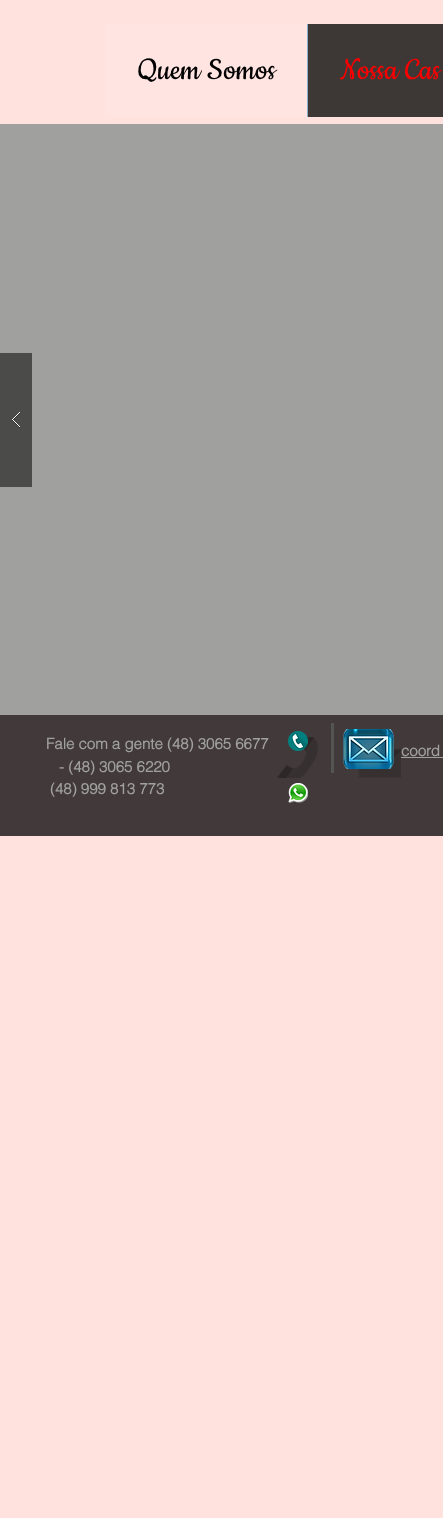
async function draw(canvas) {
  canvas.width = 443;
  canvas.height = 1518;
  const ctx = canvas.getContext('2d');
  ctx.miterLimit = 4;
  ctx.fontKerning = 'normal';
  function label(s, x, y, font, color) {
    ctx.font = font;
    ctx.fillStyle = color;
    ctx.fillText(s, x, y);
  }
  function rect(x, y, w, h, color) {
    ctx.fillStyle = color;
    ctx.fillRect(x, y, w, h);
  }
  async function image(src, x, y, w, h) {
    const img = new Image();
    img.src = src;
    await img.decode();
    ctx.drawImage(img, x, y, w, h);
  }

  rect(0, 0, 443, 1518, '#ffe1de');
  rect(105, 24, 202, 93, '#ffe4e1');
  label('Quem Somos', 137, 79, '35px Cookie', '#000');
  rect(308, 24, 135, 93, '#3d3736');
  rect(307, 24, 1, 93, '#87b1cb');
  label('Nossa Cas', 340, 79, '35px Cookie', '#fa0000');
  rect(0, 124, 443, 591, '#a0a09f');
  rect(0, 353, 32, 134, '#4b4b4a');
  await image('assets/img1.png', 12, 412, 8, 16);
  rect(0, 715, 443, 121, '#423a3a');
  rect(331, 723, 3, 50, '#545454');
  label('Fale com a gente (48) 3065 6677', 46, 749, 'bold 15px helvetica', '#a0a09f');
  label('- (48) 3065 6220', 59, 772, 'bold 15px helvetica', '#a0a09f');
  label('(48) 999 813 773', 50, 794, 'bold 15px helvetica', '#a0a09f');
  await image('assets/img4.png', 277, 737, 41, 41);
  await image('assets/img2.png', 288, 731, 20, 20);
  await image('assets/img5.png', 358, 749, 43, 29);
  await image('assets/img3.png', 343, 729, 51, 40);
  label('coord', 401, 756, 'bold 15px helvetica', '#a0a09f');
  rect(401, 757, 42, 1, '#a0a09f');
  await image('assets/img6.png', 288, 783, 20, 20);
}

draw(document.querySelector('canvas'));
